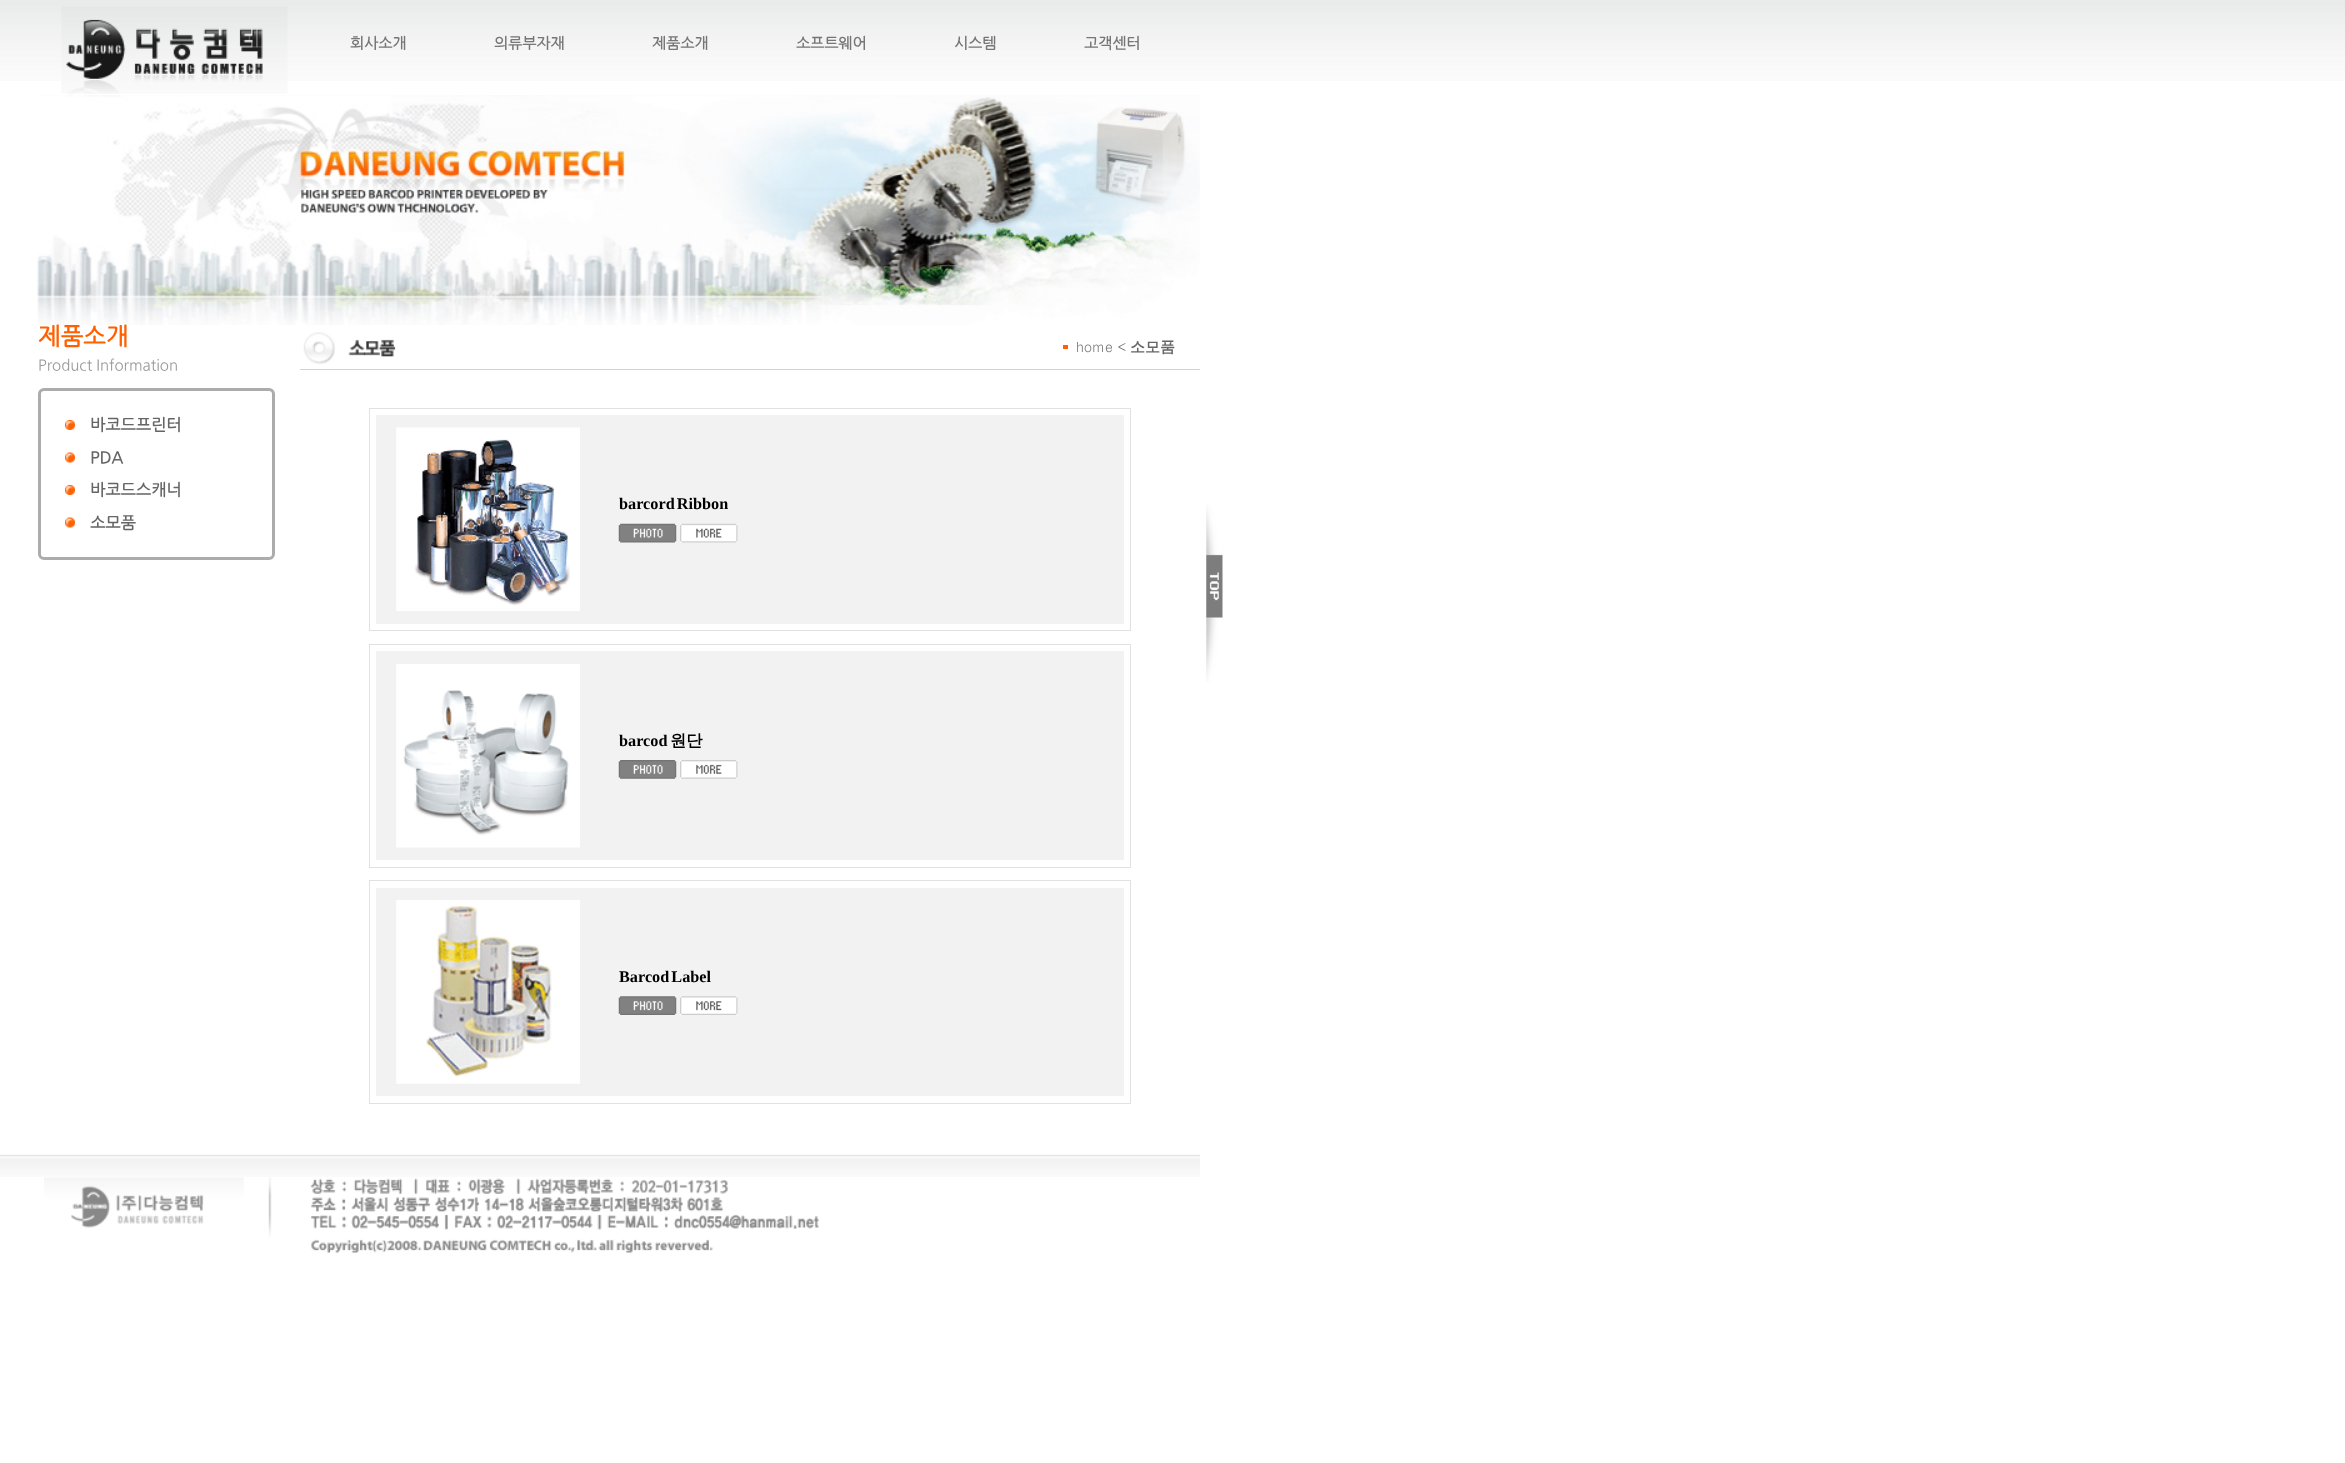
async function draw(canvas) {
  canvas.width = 2345;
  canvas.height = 1463;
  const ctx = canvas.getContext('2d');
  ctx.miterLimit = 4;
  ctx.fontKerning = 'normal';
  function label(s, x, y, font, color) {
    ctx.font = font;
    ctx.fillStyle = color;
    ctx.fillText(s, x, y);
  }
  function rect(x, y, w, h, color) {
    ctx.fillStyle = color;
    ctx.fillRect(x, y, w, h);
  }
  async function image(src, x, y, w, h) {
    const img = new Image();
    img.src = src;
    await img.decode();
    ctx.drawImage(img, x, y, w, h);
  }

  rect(0, 0, 2345, 1463, '#fff');
  await image('assets/img1.png', 0, 0, 2345, 81);
  await image('assets/img2.png', 61, 6, 227, 88);
  label('회사소개', 350, 48, 'bold 15px NanumGothic', '#767676');
  label('의류부자재', 494, 48, 'bold 15px NanumGothic', '#767676');
  label('제품소개', 652, 48, 'bold 15px NanumGothic', '#767676');
  label('소프트웨어', 796, 48, 'bold 15px NanumGothic', '#767676');
  label('시스템', 954, 48, 'bold 15px NanumGothic', '#767676');
  label('고객센터', 1084, 48, 'bold 15px NanumGothic', '#767676');
  await image('assets/img3.png', 37, 95, 1163, 230);
  label('제품소개', 38, 344, 'bold 24px NanumGothic', '#ff6000');
  label('Product Information', 38, 370, '15px NanumGothic', '#999');
  ctx.beginPath();
  ctx.roundRect(39.5, 389.5, 234, 169, 4.5);
  ctx.strokeStyle = '#acacac';
  ctx.lineWidth = 3;
  ctx.stroke();
  await image('assets/img4.png', 65, 420, 10, 10);
  label('바코드프린터', 90, 430, 'bold 16.25px NanumGothic', '#666');
  await image('assets/img5.png', 65, 452, 10, 11);
  label('PDA', 90, 463, 'bold 16.25px NanumGothic', '#666');
  await image('assets/img4.png', 65, 485, 10, 10);
  label('바코드스캐너', 90, 495, 'bold 16.25px NanumGothic', '#666');
  await image('assets/img5.png', 65, 517, 10, 11);
  label('소모품', 90, 528, 'bold 16.25px NanumGothic', '#666');
  rect(300, 369, 900, 1, '#d2d2d2');
  await image('assets/img6.png', 303, 332, 32, 32);
  await image('assets/img7.png', 348, 339, 48, 18);
  rect(1063, 345, 5, 4, '#ff6000');
  label('home <', 1076, 352, '14px Dotum', '#767676');
  label('소모품', 1130, 352, 'bold 15px WenQuanYi Zen Hei', '#666');
  ctx.strokeStyle = '#e1e1e1';
  ctx.lineWidth = 1;
  ctx.strokeRect(369.5, 408.5, 761, 222);
  rect(376, 415, 748, 209, '#f2f2f2');
  await image('assets/img8.png', 396, 427, 184, 184);
  ctx.wordSpacing = '-2px';
  label('barcord Ribbon', 619, 509, 'bold 16.25px Liberation Serif', '#000');
  await image('assets/img9.png', 618, 523, 59, 20);
  await image('assets/img10.png', 680, 523, 58, 20);
  ctx.strokeRect(369.5, 644.5, 761, 223);
  rect(376, 651, 748, 209, '#f2f2f2');
  await image('assets/img11.png', 396, 664, 184, 184);
  ctx.wordSpacing = '0px';
  label('barcod', 619, 746, 'bold 16.25px Liberation Serif', '#000');
  label('원단', 670, 746, 'bold 16.25px WenQuanYi Zen Hei', '#000');
  await image('assets/img12.png', 618, 760, 59, 19);
  await image('assets/img13.png', 680, 760, 58, 19);
  ctx.strokeRect(369.5, 880.5, 761, 223);
  rect(376, 888, 748, 208, '#f2f2f2');
  await image('assets/img14.png', 396, 900, 184, 184);
  ctx.wordSpacing = '-2px';
  label('Barcod Label', 619, 982, 'bold 16.25px Liberation Serif', '#000');
  await image('assets/img15.png', 618, 996, 59, 19);
  await image('assets/img16.png', 680, 996, 58, 19);
  await image('assets/img17.png', 0, 1154, 1200, 23);
  await image('assets/img18.png', 1206, 504, 17, 178);
  await image('assets/img19.png', 44, 1177, 200, 51);
  await image('assets/img20.png', 268, 1177, 4, 61);
  await image('assets/img21.png', 310, 1178, 509, 75);
}

draw(document.querySelector('canvas'));
